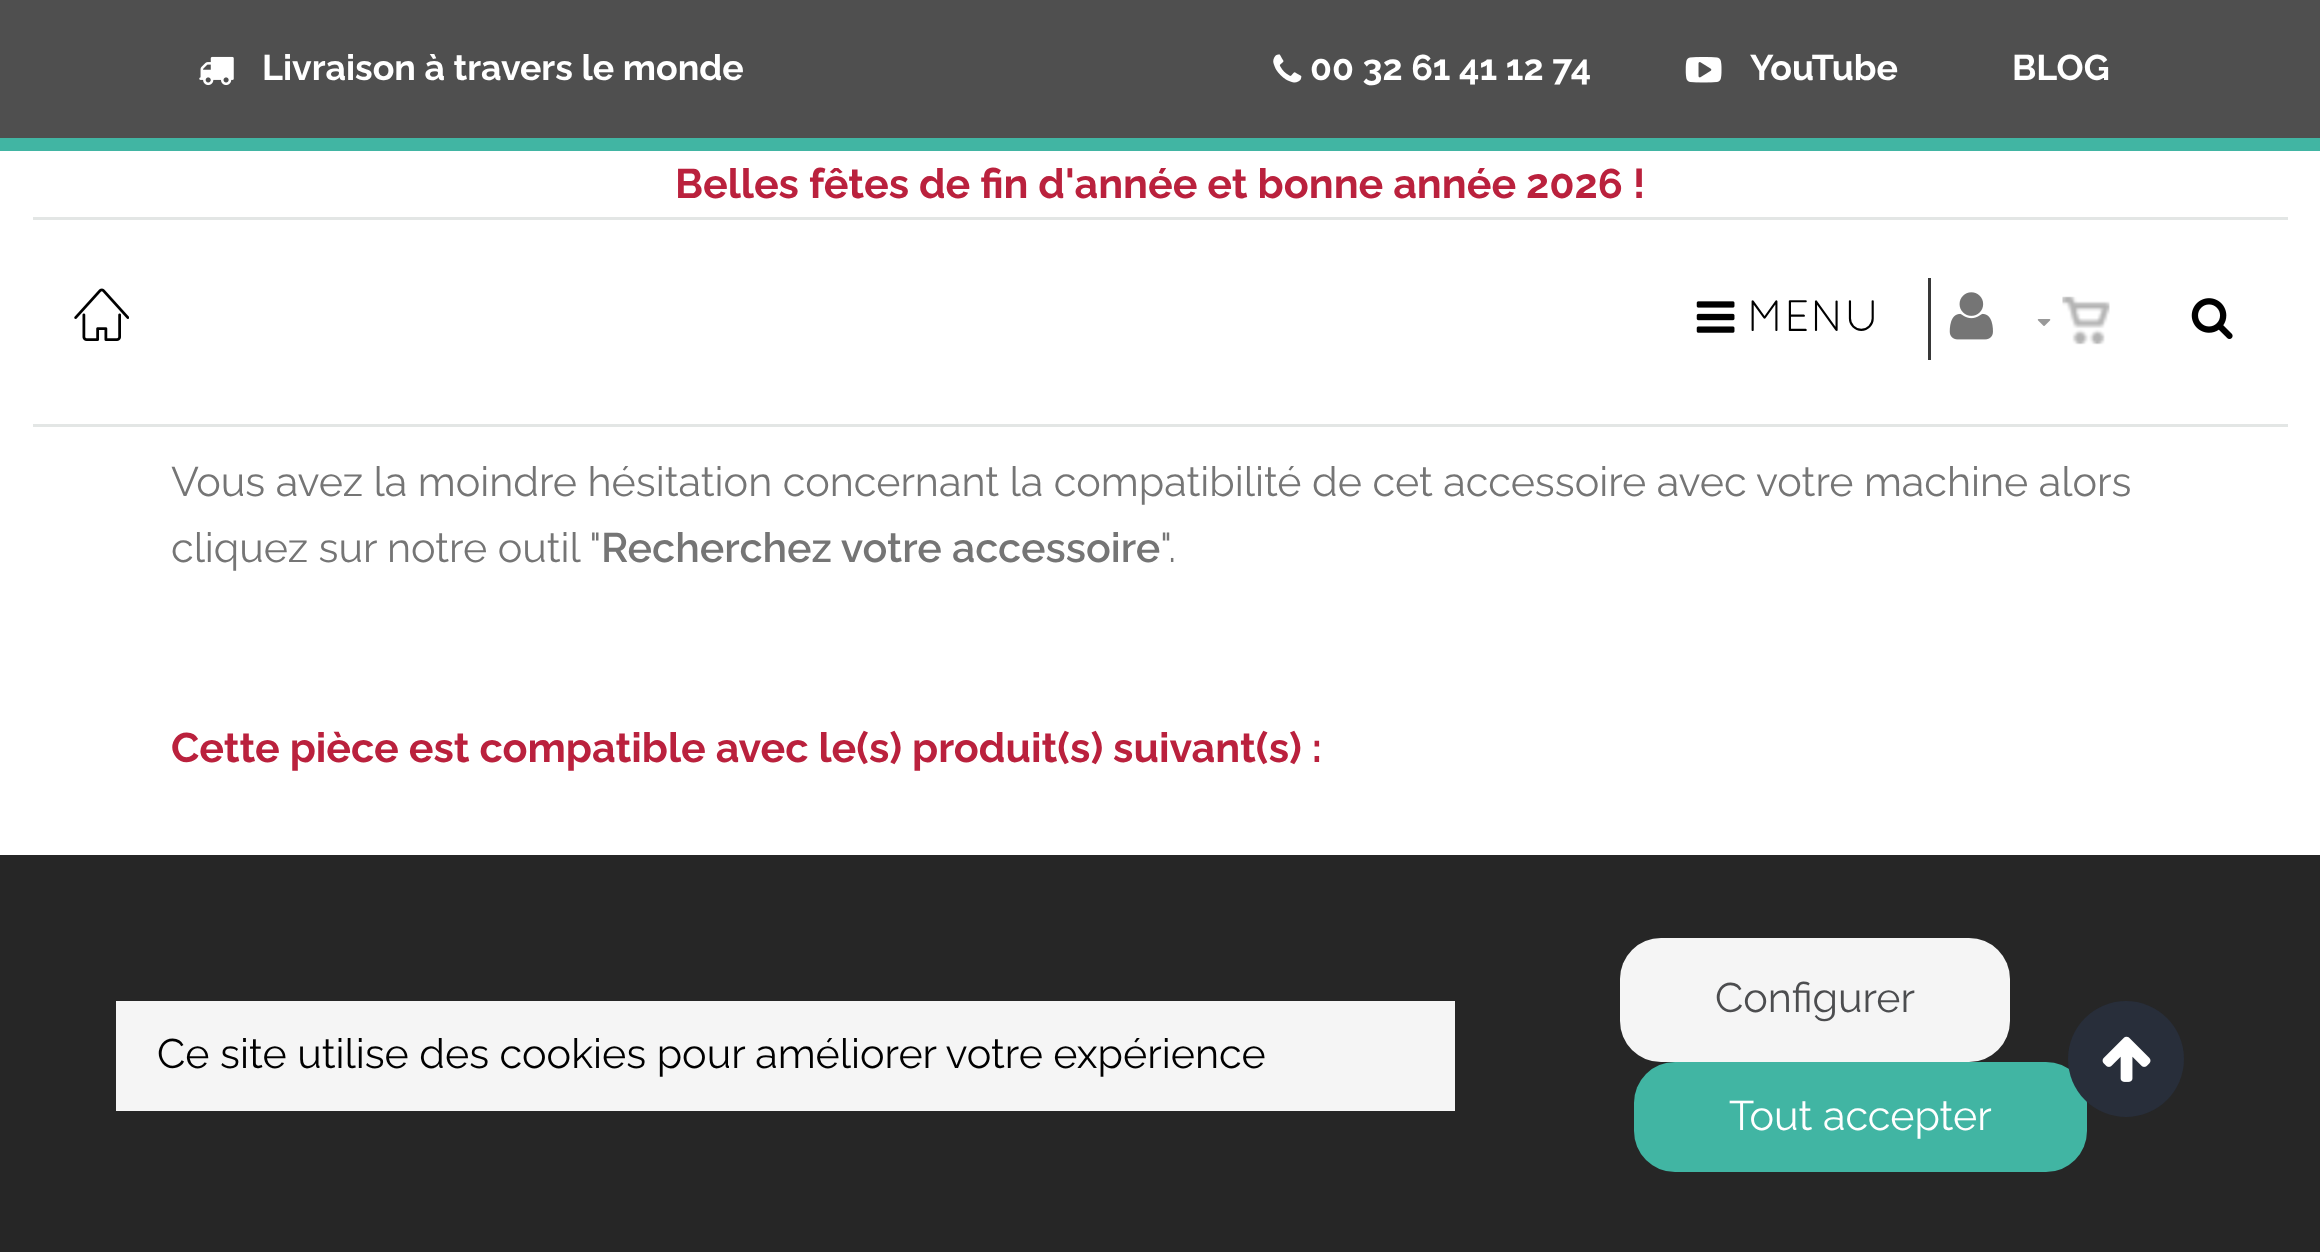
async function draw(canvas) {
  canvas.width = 2320;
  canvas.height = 1252;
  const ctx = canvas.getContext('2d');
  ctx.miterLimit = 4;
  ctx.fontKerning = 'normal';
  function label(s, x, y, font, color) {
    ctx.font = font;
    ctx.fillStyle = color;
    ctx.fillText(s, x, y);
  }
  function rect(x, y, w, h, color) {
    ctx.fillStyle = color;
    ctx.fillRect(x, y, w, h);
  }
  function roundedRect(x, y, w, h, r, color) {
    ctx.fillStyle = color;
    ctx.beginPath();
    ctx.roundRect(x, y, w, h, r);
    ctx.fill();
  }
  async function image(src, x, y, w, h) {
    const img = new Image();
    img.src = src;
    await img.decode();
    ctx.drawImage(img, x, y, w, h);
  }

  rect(0, 0, 2320, 1252, '#fff');
  rect(0, 0, 2320, 138, '#4f4f4f');
  rect(0, 138, 2320, 13, '#41b5a3');
  await image('assets/img1.png', 199, 56, 35, 30);
  label('Livraison à travers le monde', 262, 80, 'bold 35.75px Raleway', '#fff');
  await image('assets/img2.png', 1273, 54, 29, 29);
  label('00 32 61 41 12 74', 1310, 80, 'bold 35.75px Raleway', '#fff');
  await image('assets/img3.png', 1685, 57, 37, 26);
  label('YouTube', 1750, 80, 'bold 35.75px Raleway', '#fff');
  label('BLOG', 2012, 80, 'bold 35.75px Raleway', '#fff');
  label('Belles fêtes de fin d\'année et bonne année 2026 !', 675, 198, 'bold 41.25px Raleway', '#ba213d');
  rect(33, 217, 2255, 3, '#e3e6e5');
  rect(33, 424, 2255, 3, '#e3e6e5');
  await image('assets/img4.png', 74, 288, 55, 53);
  await image('assets/img5.png', 1696, 301, 39, 32);
  label('MENU', 1747, 331, '44px Quicksand', '#000');
  rect(1928, 278, 3, 82, '#383838');
  await image('assets/img6.png', 1949, 292, 44, 48);
  await image('assets/img7.png', 2037, 319, 14, 7);
  await image('assets/img8.png', 2062, 296, 48, 49);
  await image('assets/img9.png', 2191, 298, 42, 41);
  label('Vous avez la moindre hésitation concernant la compatibilité de cet accessoire avec votre machine alors', 171, 496, '41.25px Raleway', '#757575');
  label('cliquez sur notre outil "', 171, 562, '41.25px Raleway', '#757575');
  label('Recherchez votre accessoire', 601, 562, '600 41.25px Raleway', '#757575');
  label('".', 1160, 562, '41.25px Raleway', '#757575');
  label('Cette pièce est compatible avec le(s) produit(s) suivant(s) :', 171, 762, 'bold 41.25px Raleway', '#ba213d');
  rect(0, 855, 2320, 397, '#262626');
  rect(116, 1001, 1339, 110, '#f5f5f5');
  label('Ce site utilise des cookies pour améliorer votre expérience', 157, 1068, '41.25px Raleway', '#000');
  roundedRect(1620, 938, 390, 124, 41, '#f5f5f5');
  label('Configurer', 1715, 1012, '41.25px Raleway', '#4c4d4f');
  roundedRect(1634, 1062, 453, 110, 41, '#41b5a3');
  label('Tout accepter', 1729, 1130, '41.25px Raleway', '#fff');
  ctx.fillStyle = '#282e3a';
  ctx.beginPath();
  ctx.arc(2126, 1059, 58, 0, 2 * Math.PI);
  ctx.fill();
  await image('assets/img10.png', 2102, 1036, 49, 46);
}

draw(document.querySelector('canvas'));
